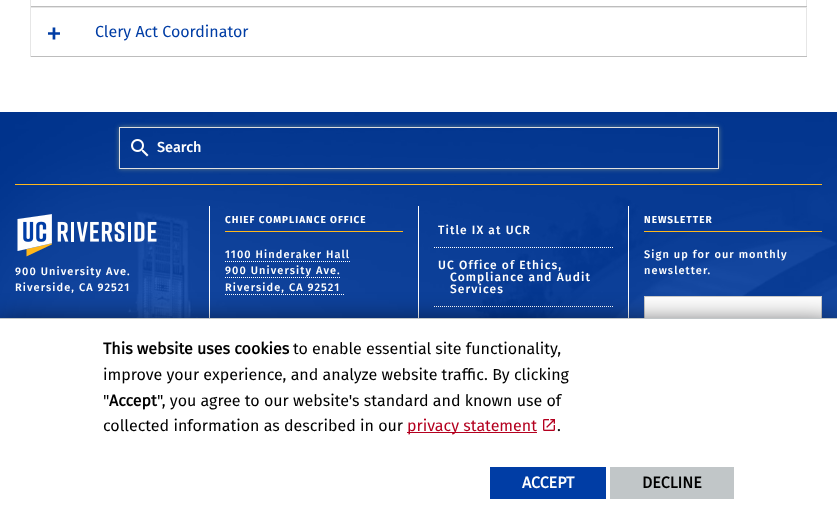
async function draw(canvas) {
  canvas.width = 837;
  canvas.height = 524;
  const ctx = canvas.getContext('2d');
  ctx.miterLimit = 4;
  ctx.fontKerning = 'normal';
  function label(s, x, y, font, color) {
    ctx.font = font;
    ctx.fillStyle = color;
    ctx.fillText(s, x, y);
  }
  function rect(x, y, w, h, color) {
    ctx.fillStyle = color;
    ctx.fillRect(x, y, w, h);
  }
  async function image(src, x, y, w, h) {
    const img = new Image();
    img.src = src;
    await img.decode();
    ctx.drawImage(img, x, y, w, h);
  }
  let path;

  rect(0, 0, 837, 524, '#fff');
  rect(806, 0, 1, 7, '#e6e6e6');
  rect(30, 6, 777, 1, '#bdbdbd');
  rect(30, 0, 1, 7, '#e6e6e6');
  rect(30, 7, 777, 1, '#e6e6e6');
  rect(806, 7, 1, 50, '#e6e6e6');
  rect(30, 56, 777, 1, '#bdbdbd');
  rect(30, 7, 1, 50, '#e6e6e6');
  label('+', 46, 44, '32px Fira Sans', '#003da5');
  label('Clery Act Coordinator', 95, 37, '16px Fira Sans', '#003da5');
  rect(0, 112, 837, 206, '#003da5');
  await image('assets/img1.png', 0, 112, 837, 206);
  rect(15, 184, 807, 1, '#ffb81c');
  ctx.save();
  path = new Path2D('M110 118H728V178H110ZM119 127H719V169H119Z');
  ctx.clip(path, 'evenodd');
  ctx.fillStyle = '#607d8b';
  ctx.filter = 'blur(2.5px)';
  ctx.beginPath();
  ctx.rect(119, 127, 600, 42);
  ctx.fill();
  ctx.filter = 'none';
  ctx.restore();
  ctx.strokeStyle = '#e0e0e0';
  ctx.strokeRect(119.5, 127.5, 599, 41);
  await image('assets/img2.png', 131, 139, 18, 18);
  label('Search', 157, 152, '500 14.5px Fira Sans', '#fefefe');
  rect(209, 206, 1, 112, '#fefefe');
  await image('assets/img3.png', 17, 214, 140, 43);
  ctx.letterSpacing = '1.1px';
  label('900 University Ave.', 15, 275, '500 11px Fira Sans', '#fefefe');
  label('Riverside, CA 92521', 15, 291, '500 11px Fira Sans', '#fefefe');
  rect(418, 206, 1, 112, '#fefefe');
  rect(225, 231, 178, 1, '#ffb81c');
  ctx.letterSpacing = '1px';
  label('CHIEF COMPLIANCE OFFICE', 225, 223, 'bold 10px Fira Sans', '#fefefe');
  ctx.letterSpacing = '1.1px';
  label('1100 Hinderaker Hall', 225, 258, '500 11px Fira Sans', '#fefefe');
  path = new Path2D('M225 261.5H350');
  ctx.strokeStyle = '#fff';
  ctx.setLineDash([1, 1]);
  ctx.stroke(path);
  label('900 University Ave.', 225, 274, '500 11px Fira Sans', '#fefefe');
  path = new Path2D('M225 277.5H340');
  ctx.stroke(path);
  label('Riverside, CA 92521', 225, 291, '500 11px Fira Sans', '#fefefe');
  path = new Path2D('M225 294.5H344');
  ctx.stroke(path);
  rect(628, 206, 1, 112, '#fefefe');
  path = new Path2D('M434 247.5H613');
  ctx.stroke(path);
  label('Title IX at UCR', 438, 234, '500 12px Fira Sans', '#fefefe');
  path = new Path2D('M434 306.5H613');
  ctx.stroke(path);
  label('UC Office of Ethics,', 438, 269, '500 12px Fira Sans', '#fefefe');
  label('Compliance and Audit', 450, 281, '500 12px Fira Sans', '#fefefe');
  label('Services', 450, 293, '500 12px Fira Sans', '#fefefe');
  rect(644, 231, 178, 1, '#ffb81c');
  ctx.letterSpacing = '1px';
  label('NEWSLETTER', 644, 223, 'bold 10px Fira Sans', '#fefefe');
  ctx.letterSpacing = '1.1px';
  label('Sign up for our monthly', 644, 258, '500 11px Fira Sans', '#fefefe');
  label('newsletter.', 644, 274, '500 11px Fira Sans', '#fefefe');
  rect(645, 297, 176, 21, '#fefefe');
  ctx.strokeStyle = '#cacaca';
  ctx.setLineDash([]);
  ctx.strokeRect(644.5, 296.5, 177, 38);
  ctx.fillStyle = '#020203';
  ctx.filter = 'blur(15px)';
  ctx.beginPath();
  ctx.rect(0, 328, 837, 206);
  ctx.fill();
  ctx.filter = 'none';
  rect(0, 319, 837, 205, '#fff');
  rect(0, 318, 837, 1, '#c1c6c8');
  ctx.letterSpacing = '0px';
  label('This website uses cookies', 103, 354, 'bold 16px "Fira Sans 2"', '#000');
  label('to enable essential site functionality,', 293, 354, '16px Fira Sans', '#000');
  label('improve your experience, and analyze website traffic. By clicking', 103, 380, '16px Fira Sans', '#000');
  label('"', 103, 406, '16px Fira Sans', '#000');
  label('Accept', 109, 406, 'bold 16px "Fira Sans 2"', '#000');
  label('", you agree to our website\'s standard and known use of', 157, 406, '16px Fira Sans', '#000');
  label('collected information as described in our', 103, 431, '16px Fira Sans', '#000');
  rect(407, 432, 130, 1, '#b4001f');
  label('privacy statement', 407, 431, '16px Fira Sans', '#b4001f');
  await image('assets/img4.png', 543, 419, 12, 12);
  label('.', 557, 431, '16px Fira Sans', '#000');
  rect(490, 467, 116, 32, '#003da5');
  label('ACCEPT', 522, 488, 'bold 16px "Fira Sans 2"', '#fefefe');
  rect(610, 467, 124, 32, '#c1c6c8');
  label('DECLINE', 642, 488, 'bold 16px "Fira Sans 2"', '#000');
}

draw(document.querySelector('canvas'));
